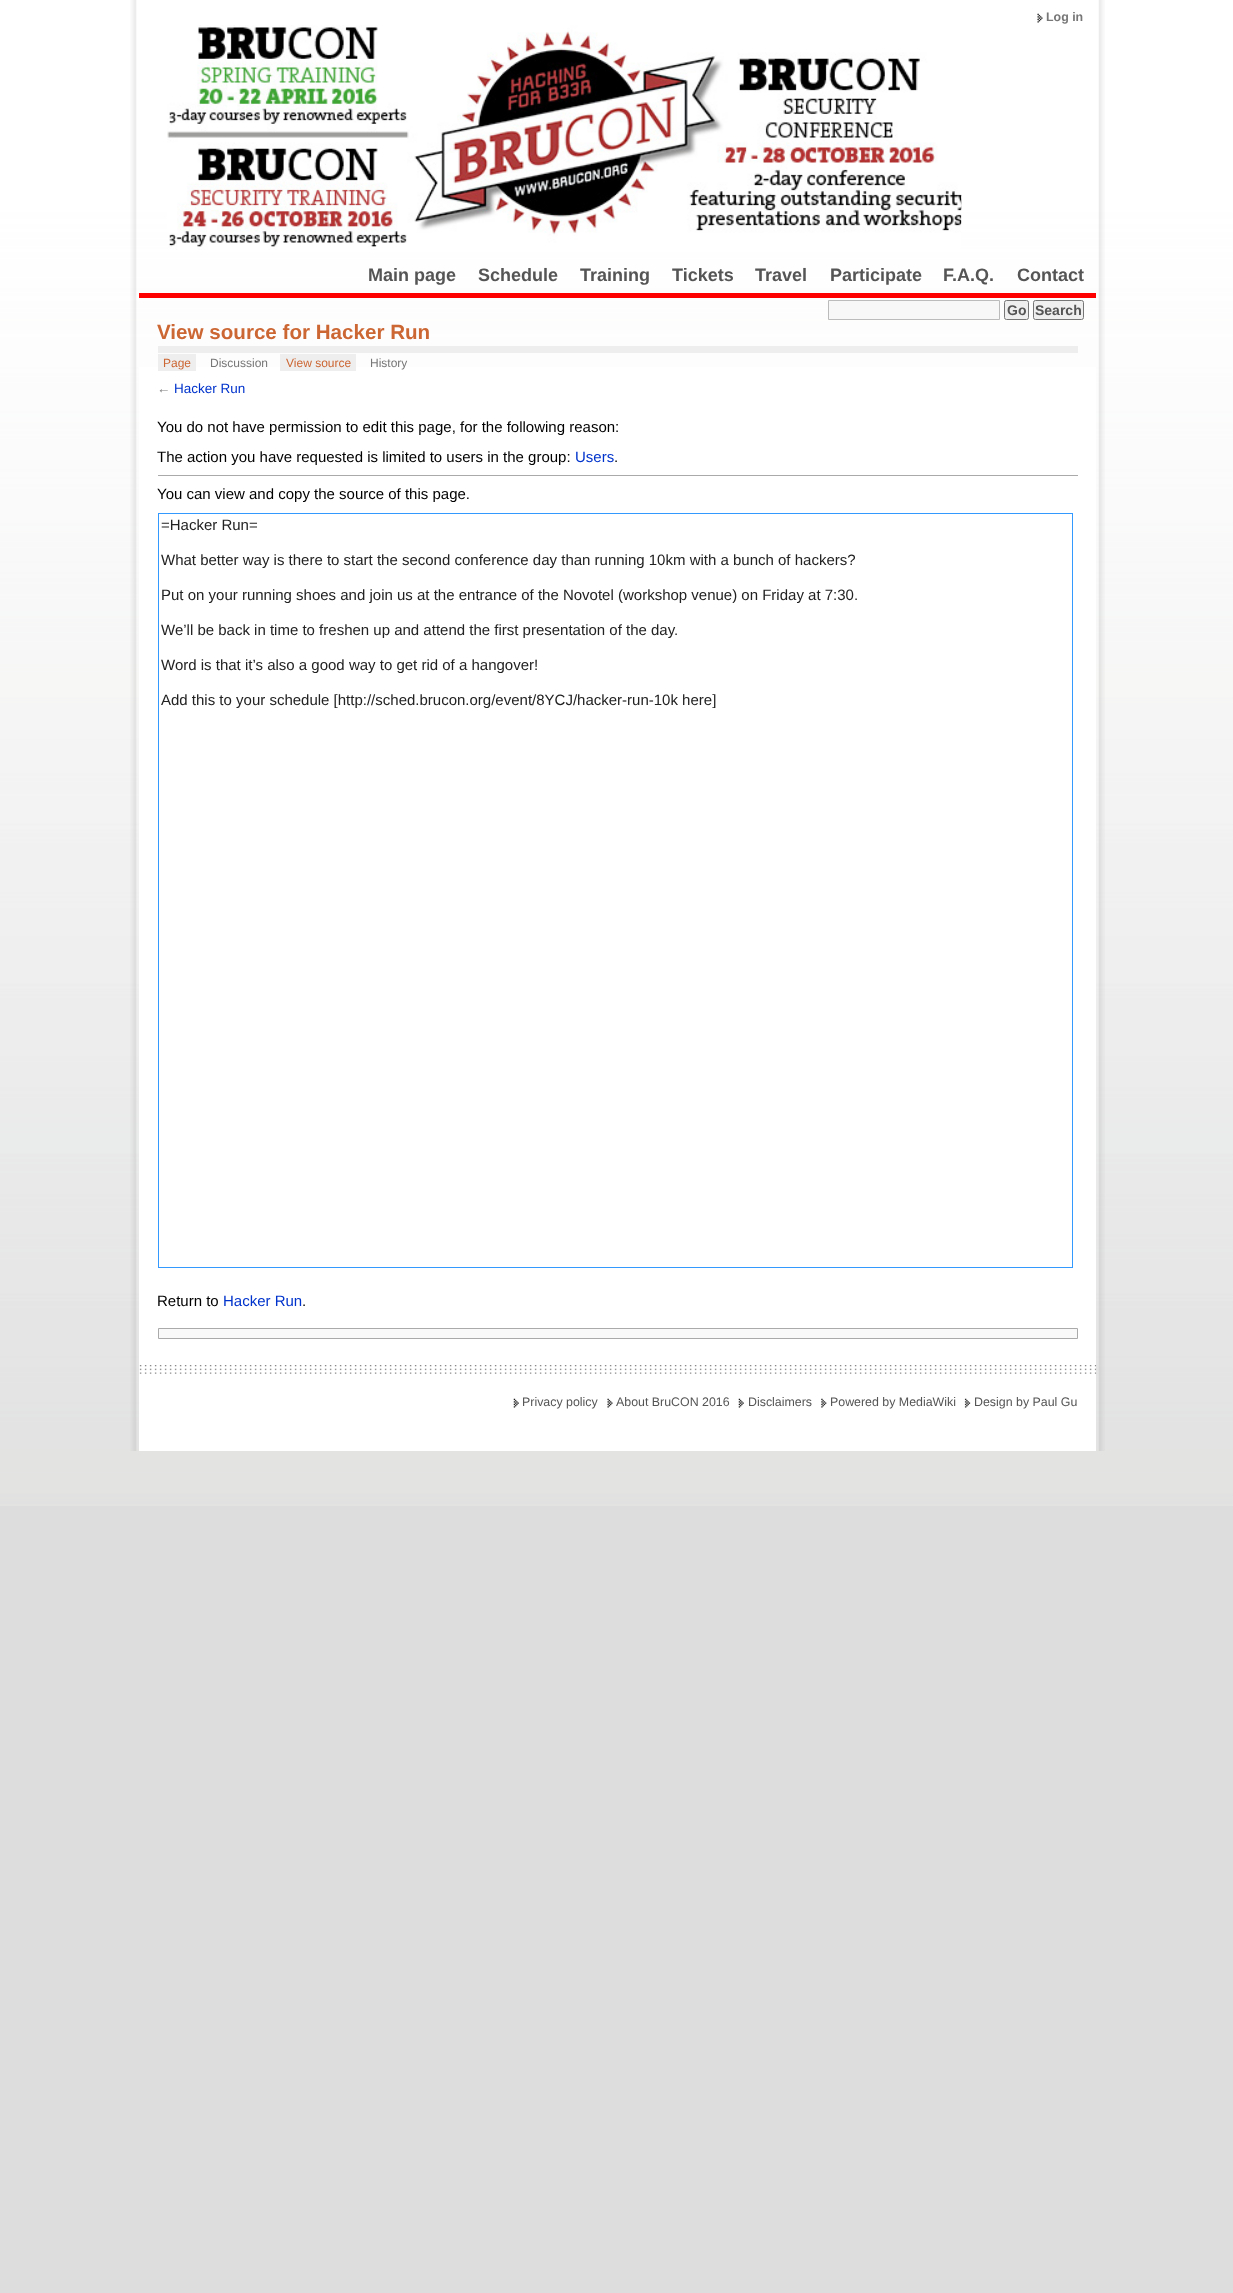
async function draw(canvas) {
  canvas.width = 1233;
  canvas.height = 2293;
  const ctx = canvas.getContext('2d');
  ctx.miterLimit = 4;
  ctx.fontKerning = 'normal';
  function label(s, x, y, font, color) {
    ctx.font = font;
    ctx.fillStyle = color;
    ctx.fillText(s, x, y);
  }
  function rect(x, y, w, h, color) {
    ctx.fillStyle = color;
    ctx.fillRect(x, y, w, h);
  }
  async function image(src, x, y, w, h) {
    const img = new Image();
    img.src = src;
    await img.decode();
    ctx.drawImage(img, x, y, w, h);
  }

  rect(0, 0, 1233, 2293, '#ddd');
  await image('assets/img1.png', 0, 0, 1233, 1506);
  await image('assets/img2.png', 130, 0, 7, 1451);
  await image('assets/img3.png', 1098, 0, 7, 1451);
  rect(139, 367, 957, 1084, '#fff');
  await image('assets/img4.png', 1037, 13, 6, 10);
  label('Log in', 1046, 21, 'bold 12.4px Liberation Sans', '#777');
  await image('assets/img5.png', 167, 25, 795, 225);
  ctx.fillStyle = '#f7f7f7';
  ctx.beginPath();
  ctx.rect(828.5, 300.5, 171, 19);
  ctx.fill();
  ctx.strokeStyle = '#bbb';
  ctx.stroke();
  ctx.fillStyle = '#efefef';
  ctx.beginPath();
  ctx.roundRect(1004.5, 300.5, 24, 19, 2);
  ctx.fill();
  ctx.strokeStyle = '#767676';
  ctx.stroke();
  label('Go', 1007, 315, 'bold 14px Liberation Sans', '#555');
  ctx.fillStyle = '#efefef';
  ctx.beginPath();
  ctx.roundRect(1033.5, 300.5, 50, 19, 2);
  ctx.fill();
  ctx.stroke();
  label('Search', 1035, 315, 'bold 14px Liberation Sans', '#555');
  label('Main page', 368, 281, 'bold 18px Liberation Sans', '#555');
  label('Schedule', 478, 281, 'bold 18px Liberation Sans', '#555');
  label('Training', 580, 281, 'bold 18px Liberation Sans', '#555');
  label('Tickets', 672, 281, 'bold 18px Liberation Sans', '#555');
  label('Travel', 755, 281, 'bold 18px Liberation Sans', '#555');
  label('Participate', 830, 281, 'bold 18px Liberation Sans', '#555');
  label('F.A.Q.', 943, 281, 'bold 18px Liberation Sans', '#555');
  label('Contact', 1017, 281, 'bold 18px Liberation Sans', '#555');
  rect(139, 293, 957, 5, '#f00');
  label('View source for Hacker Run', 157, 339, 'bold 20.6px Liberation Sans', '#c63');
  rect(158, 346, 920, 7, '#eee');
  rect(158, 354, 38, 17, '#eee');
  label('Page', 163, 367, '12px Liberation Sans', '#c63');
  label('Discussion', 210, 367, '12px Liberation Sans', '#777');
  rect(280, 354, 76, 17, '#eee');
  label('View source', 286, 367, '12px Liberation Sans', '#c63');
  label('History', 370, 367, '12px Liberation Sans', '#777');
  label('←', 157, 393, '13.5px Liberation Sans', '#7d7d7d');
  label('Hacker Run', 174, 393, '13.5px Liberation Sans', '#03c');
  label('You do not have permission to edit this page, for the following reason:', 157, 432, '15px Liberation Sans', '#000');
  label('The action you have requested is limited to users in the group:', 157, 462, '15px Liberation Sans', '#000');
  label('Users', 575, 462, '15px Liberation Sans', '#03c');
  label('.', 614, 462, '15px Liberation Sans', '#000');
  rect(158, 475, 920, 1, '#aaa');
  label('You can view and copy the source of this page.', 157, 499, '15px Liberation Sans', '#000');
  ctx.strokeStyle = '#39f';
  ctx.strokeRect(158.5, 513.5, 914, 754);
  label('=Hacker Run=', 161, 530, '15px Liberation Sans', '#222');
  label('What better way is there to start the second conference day than running 10km with a bunch of hackers?', 161, 565, '15px Liberation Sans', '#222');
  label('Put on your running shoes and join us at the entrance of the Novotel (workshop venue) on Friday at 7:30.', 161, 600, '15px Liberation Sans', '#222');
  label('We’ll be back in time to freshen up and attend the first presentation of the day.', 161, 635, '15px Liberation Sans', '#222');
  label('Word is that it’s also a good way to get rid of a hangover!', 161, 670, '15px Liberation Sans', '#222');
  label('Add this to your schedule [http://sched.brucon.org/event/8YCJ/hacker-run-10k here]', 161, 705, '15px Liberation Sans', '#222');
  label('Return to', 157, 1306, '15px Liberation Sans', '#000');
  label('Hacker Run', 223, 1306, '15px Liberation Sans', '#03c');
  label('.', 302, 1306, '15px Liberation Sans', '#000');
  ctx.fillStyle = '#f9f9f9';
  ctx.beginPath();
  ctx.rect(158.5, 1328.5, 919, 10);
  ctx.fill();
  ctx.strokeStyle = '#aaa';
  ctx.stroke();
  await image('assets/img6.png', 139, 1365, 958, 9);
  await image('assets/img7.png', 513, 1398, 6, 10);
  label('Privacy policy', 522, 1406, '12.4px Liberation Sans', '#555');
  await image('assets/img4.png', 607, 1398, 6, 10);
  label('About BruCON 2016', 616, 1406, '12.4px Liberation Sans', '#555');
  await image('assets/img7.png', 738, 1398, 6, 10);
  label('Disclaimers', 748, 1406, '12.4px Liberation Sans', '#555');
  await image('assets/img8.png', 821, 1398, 6, 10);
  label('Powered by MediaWiki', 830, 1406, '12.4px Liberation Sans', '#555');
  await image('assets/img9.png', 964, 1398, 7, 10);
  label('Design by Paul Gu', 974, 1406, '12.4px Liberation Sans', '#555');
}

draw(document.querySelector('canvas'));
